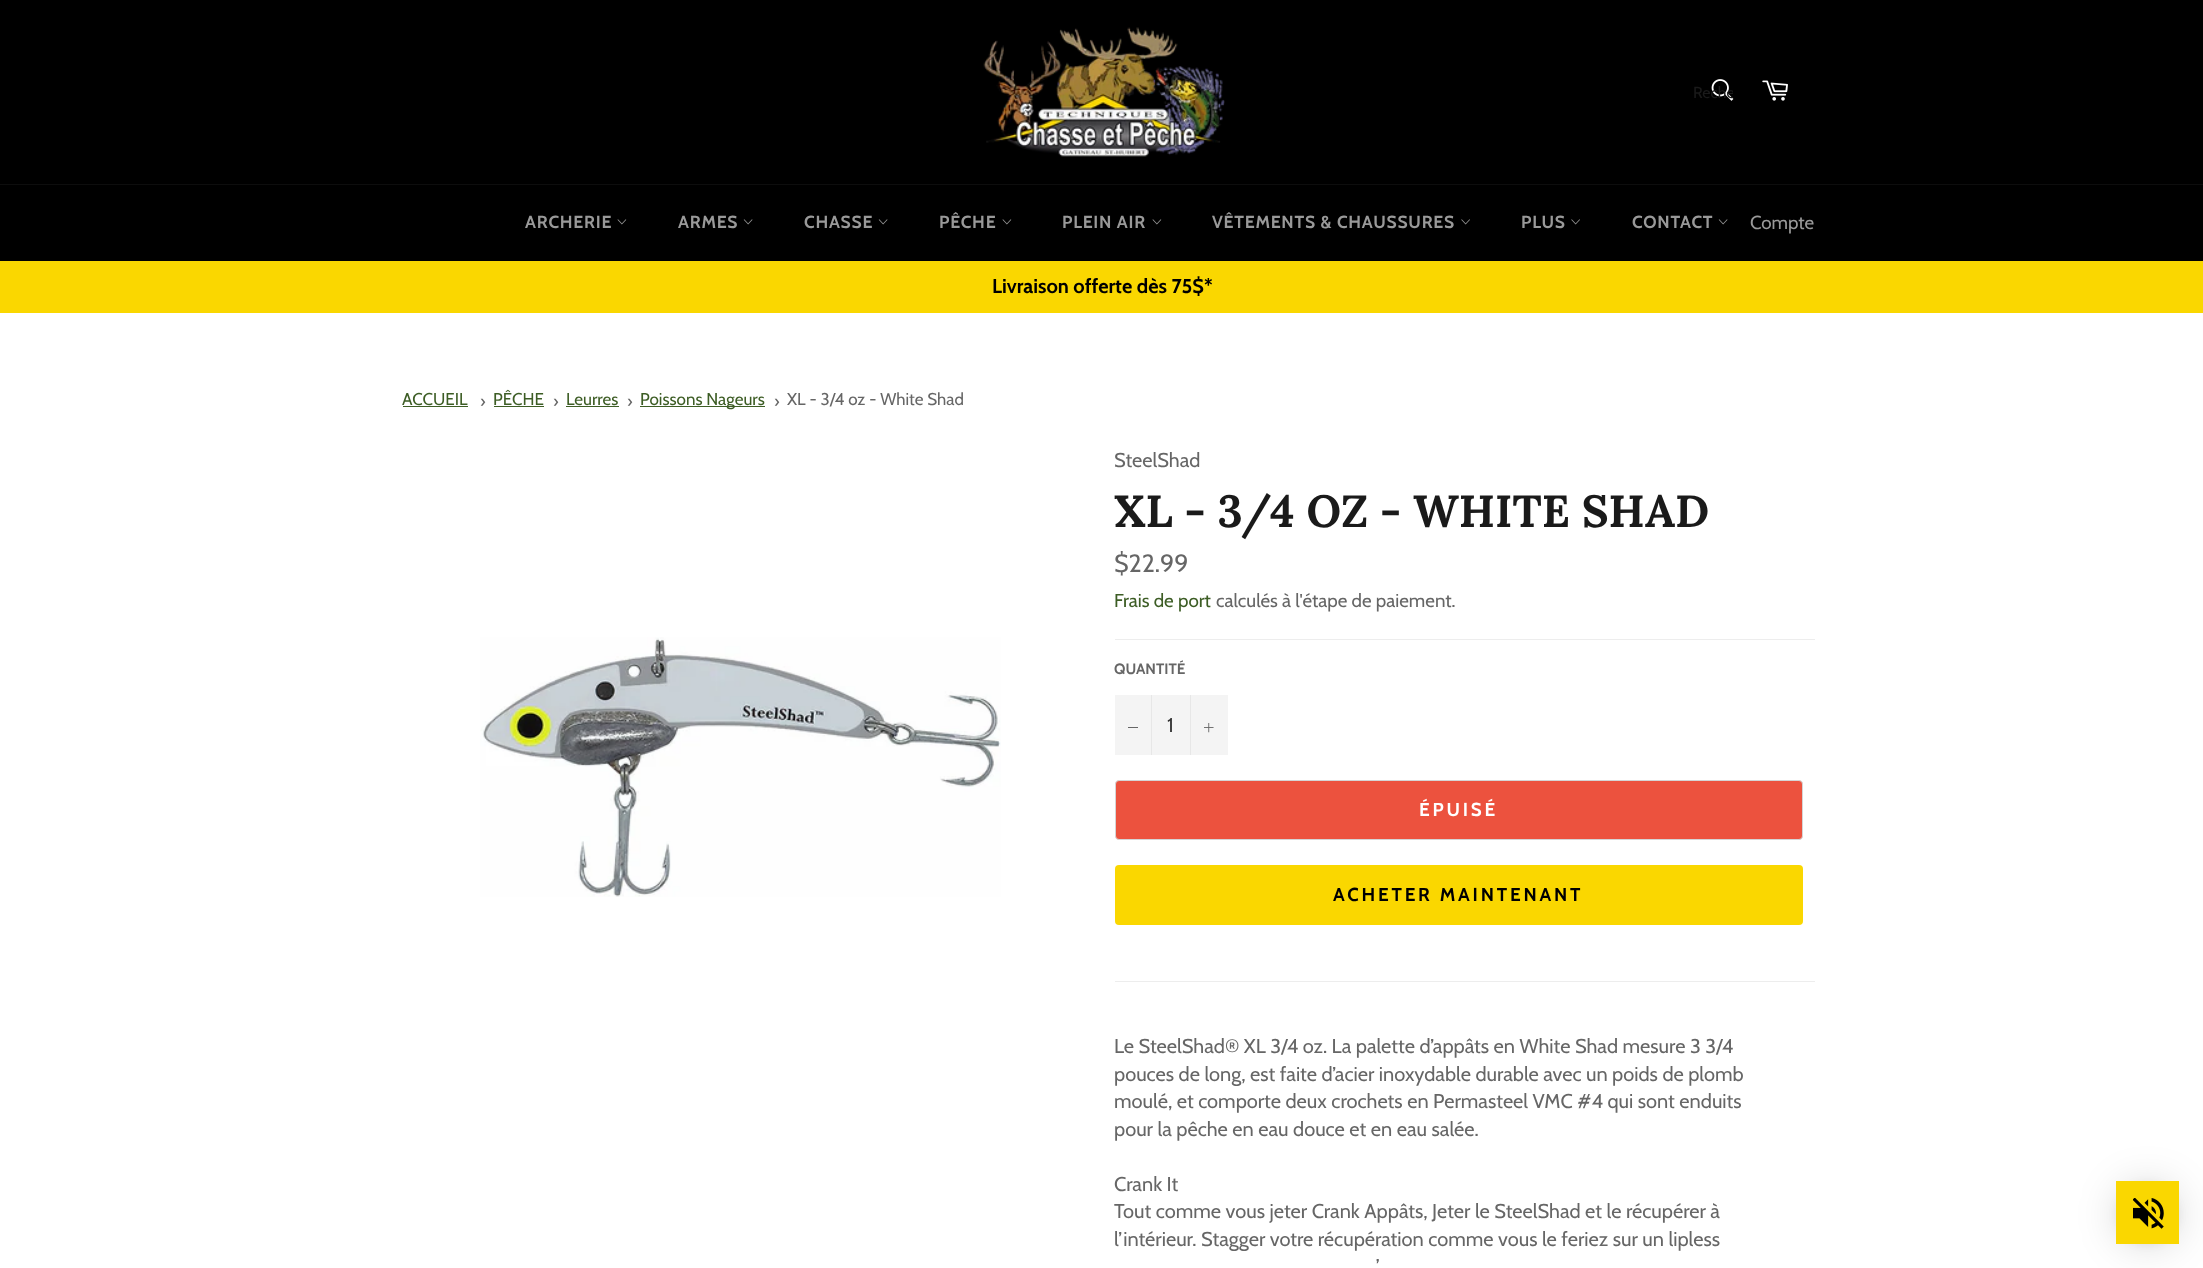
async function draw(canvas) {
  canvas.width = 2203;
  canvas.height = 1268;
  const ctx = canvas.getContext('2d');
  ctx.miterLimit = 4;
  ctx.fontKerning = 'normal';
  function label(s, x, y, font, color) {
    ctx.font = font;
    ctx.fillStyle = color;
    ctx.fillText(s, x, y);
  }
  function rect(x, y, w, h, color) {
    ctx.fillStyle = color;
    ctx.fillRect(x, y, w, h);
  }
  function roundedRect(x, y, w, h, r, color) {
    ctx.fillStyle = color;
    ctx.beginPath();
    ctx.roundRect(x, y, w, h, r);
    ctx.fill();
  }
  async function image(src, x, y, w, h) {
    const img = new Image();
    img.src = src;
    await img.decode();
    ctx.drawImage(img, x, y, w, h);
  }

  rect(0, 0, 2203, 1268, '#fff');
  rect(0, 0, 2203, 184, '#000');
  await image('assets/img1.png', 983, 27, 242, 130);
  await image('assets/img2.png', 1711, 79, 23, 22);
  ctx.save();
  ctx.beginPath();
  ctx.rect(1693, 83, 40, 20);
  ctx.clip();
  label('Reche', 1693, 98, '16px Cabin', '#1a1a1a');
  ctx.restore();
  await image('assets/img3.png', 1762, 80, 26, 21);
  rect(0, 185, 2203, 76, '#000');
  rect(0, 184, 2203, 1, '#0d0d0d');
  ctx.letterSpacing = '0.75px';
  label('ARCHERIE', 525, 228, 'bold 17.5px Cabin', '#999');
  await image('assets/img4.png', 617, 219, 10, 6);
  label('ARMES', 678, 228, 'bold 17.5px Cabin', '#999');
  await image('assets/img5.png', 743, 219, 10, 6);
  label('CHASSE', 804, 228, 'bold 17.5px Cabin', '#999');
  await image('assets/img5.png', 878, 219, 10, 6);
  label('PÊCHE', 939, 228, 'bold 17.5px Cabin', '#999');
  await image('assets/img4.png', 1002, 219, 10, 6);
  label('PLEIN AIR', 1062, 228, 'bold 17.5px Cabin', '#999');
  await image('assets/img4.png', 1152, 219, 10, 6);
  label('VÊTEMENTS & CHAUSSURES', 1212, 228, 'bold 17.5px Cabin', '#999');
  await image('assets/img6.png', 1461, 219, 9, 6);
  label('PLUS', 1521, 228, 'bold 17.5px Cabin', '#999');
  await image('assets/img6.png', 1571, 219, 9, 6);
  label('CONTACT', 1632, 228, 'bold 17.5px Cabin', '#999');
  await image('assets/img5.png', 1718, 219, 10, 6);
  ctx.letterSpacing = '0px';
  label('Compte', 1750, 229, '18.75px Cabin', '#999');
  rect(0, 261, 2203, 52, '#fad700');
  label('Livraison offerte dès 75$*', 992, 293, 'bold 20px Cabin', '#000');
  label('ACCUEIL', 402, 405, '17px Cabin', '#3d5d25');
  rect(403, 406, 65, 1, '#3d5d25');
  label('›', 480, 407, '17px Cabin', '#666');
  label('PÊCHE', 493, 405, '17px Cabin', '#3d5d25');
  rect(494, 406, 50, 1, '#3d5d25');
  label('›', 553, 407, '17px Cabin', '#666');
  label('Leurres', 566, 405, '17px Cabin', '#3d5d25');
  rect(566, 406, 53, 1, '#3d5d25');
  label('›', 627, 407, '17px Cabin', '#666');
  rect(640, 406, 125, 1, '#3d5d25');
  label('Poissons Nageurs', 640, 405, '17px Cabin', '#3d5d25');
  label('›', 774, 407, '17px Cabin', '#666');
  label('XL - 3/4 oz - White Shad', 787, 405, '17px Cabin', '#666');
  await image('assets/img7.png', 480, 637, 521, 260);
  label('SteelShad', 1114, 467, '20px Cabin', '#666');
  label('XL - 3/4 OZ - WHITE SHAD', 1114, 527, 'bold 45px Lora', '#1a1a1a');
  label('$22.99', 1114, 572, '25px Cabin', '#666');
  label('Frais de port', 1114, 607, '18.75px Cabin', '#3d5d25');
  label('calculés à l\'étape de paiement.', 1216, 607, '18.75px Cabin', '#666');
  rect(1115, 639, 700, 1, '#ededed');
  label('QUANTITÉ', 1114, 674, 'bold 15px Cabin', '#666');
  rect(1115, 695, 113, 60, '#f4f4f4');
  rect(1151, 695, 1, 60, '#e7e7e7');
  rect(1128, 727, 10, 1, '#666');
  label('1', 1167, 732, '20px Cabin', '#333');
  rect(1190, 695, 1, 60, '#e7e7e7');
  await image('assets/img8.png', 1204, 723, 10, 10);
  ctx.fillStyle = '#ec523e';
  ctx.beginPath();
  ctx.roundRect(1115.5, 780.5, 687, 59, 3.5);
  ctx.fill();
  ctx.strokeStyle = '#d5d5d5';
  ctx.stroke();
  ctx.letterSpacing = '2.8px';
  label('ÉPUISÉ', 1419, 816, 'bold 18.75px Cabin', '#fff');
  roundedRect(1115, 865, 688, 60, 4, '#fad700');
  label('ACHETER MAINTENANT', 1333, 901, 'bold 18.75px Cabin', '#000');
  rect(1115, 981, 700, 1, '#ededed');
  ctx.letterSpacing = '0px';
  label('Le SteelShad® XL 3/4 oz. La palette d’appâts en White Shad mesure 3 3/4', 1114, 1053, '20px Cabin', '#666');
  label('pouces de long, est faite d’acier inoxydable durable avec un poids de plomb', 1114, 1081, '20px Cabin', '#666');
  label('moulé, et comporte deux crochets en Permasteel VMC #4 qui sont enduits', 1114, 1108, '20px Cabin', '#666');
  label('pour la pêche en eau douce et en eau salée.', 1114, 1136, '20px Cabin', '#666');
  label('Crank It', 1114, 1191, '20px Cabin', '#666');
  label('Tout comme vous jeter Crank Appâts, Jeter le SteelShad et le récupérer à', 1114, 1218, '20px Cabin', '#666');
  label('l’intérieur. Stagger votre récupération comme vous le feriez sur un lipless', 1114, 1246, '20px Cabin', '#666');
  label('’', 1376, 1273, '20px Cabin', '#666');
  ctx.fillStyle = '#00000029';
  ctx.filter = 'blur(20px)';
  ctx.beginPath();
  ctx.roundRect(2116, 1184, 63, 62, 31);
  ctx.fill();
  ctx.filter = 'none';
  ctx.fillStyle = '#0000000f';
  ctx.filter = 'blur(4px)';
  ctx.beginPath();
  ctx.roundRect(2116, 1183, 63, 62, 31);
  ctx.fill();
  ctx.filter = 'none';
  rect(2116, 1181, 63, 63, '#fad700');
  await image('assets/img9.png', 2133, 1198, 31, 31);
}

draw(document.querySelector('canvas'));
